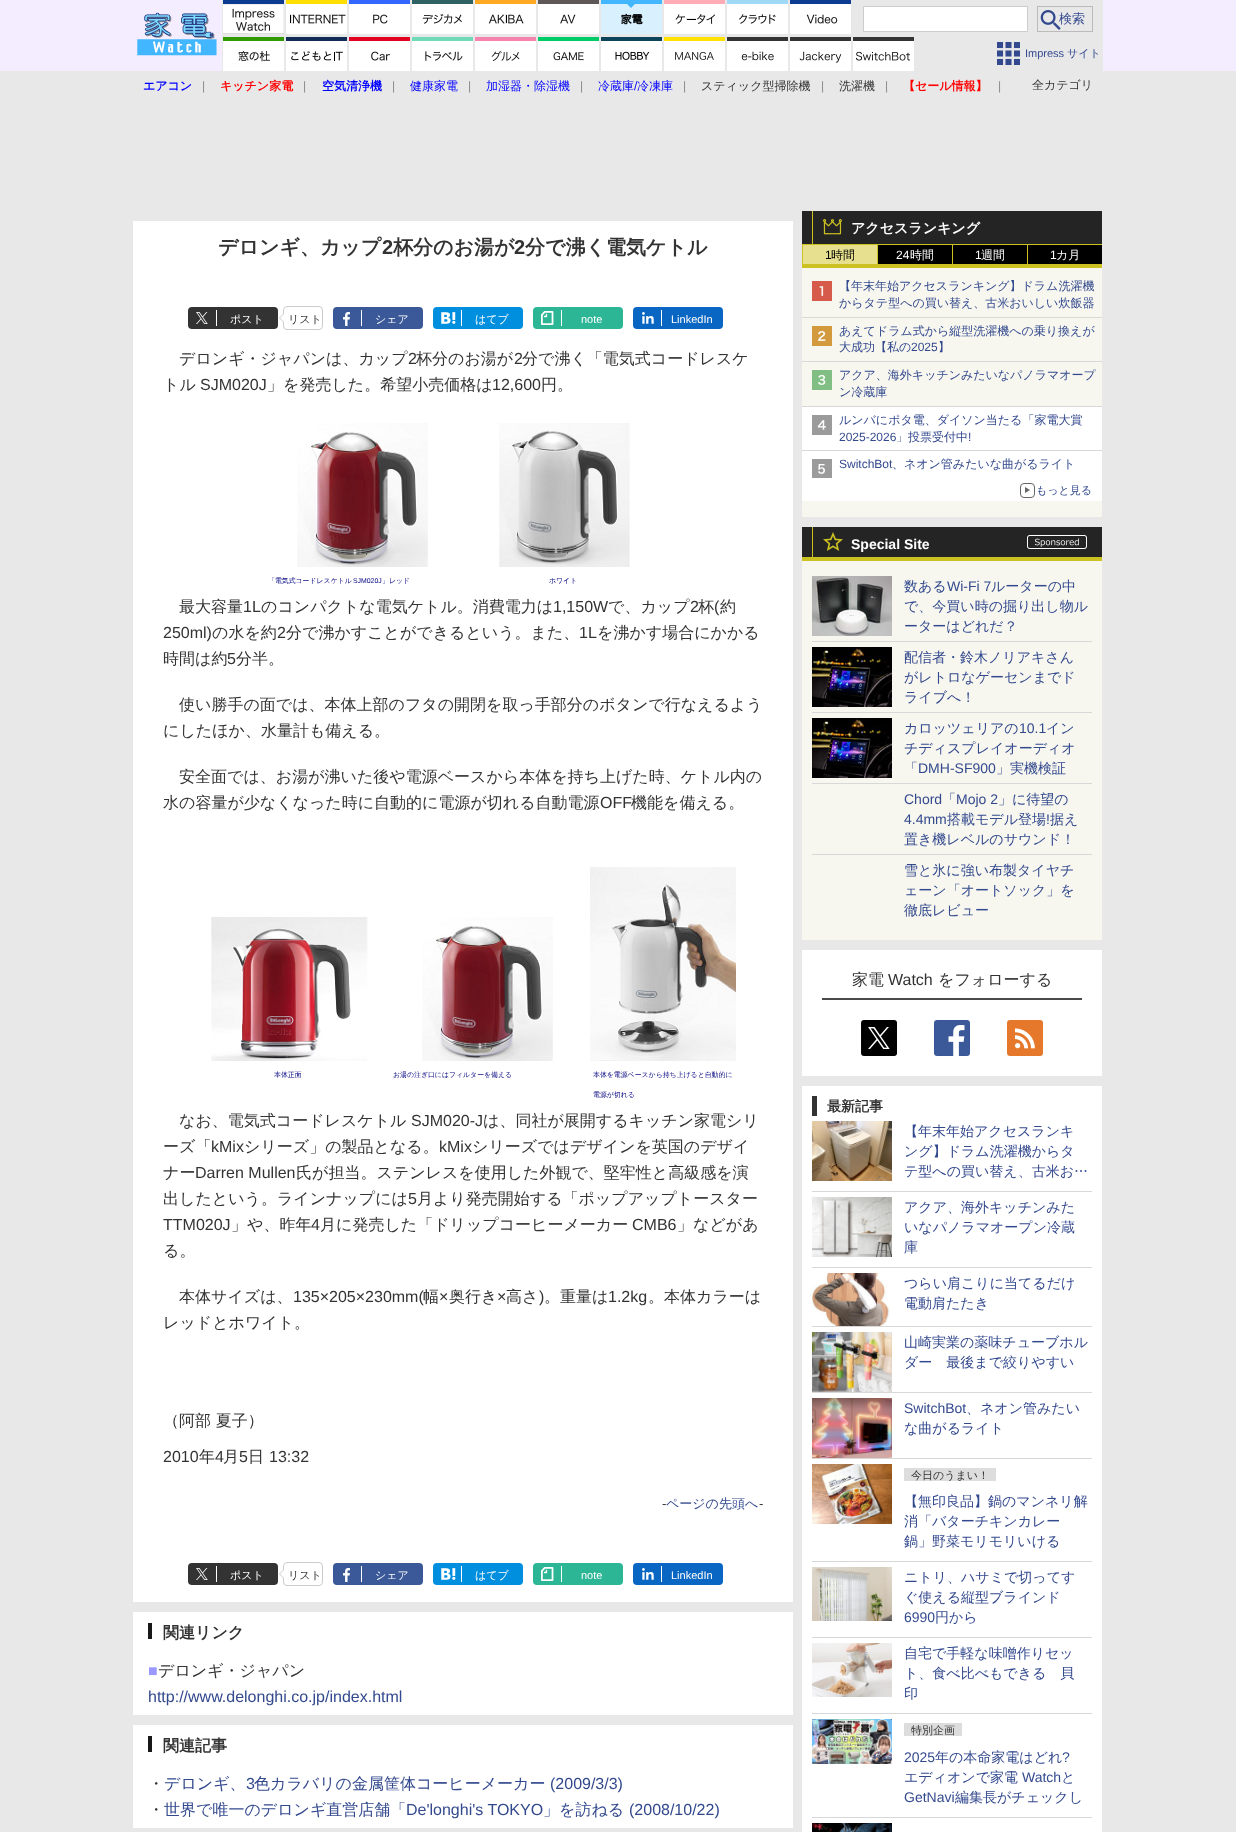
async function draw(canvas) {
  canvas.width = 1236;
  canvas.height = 1832;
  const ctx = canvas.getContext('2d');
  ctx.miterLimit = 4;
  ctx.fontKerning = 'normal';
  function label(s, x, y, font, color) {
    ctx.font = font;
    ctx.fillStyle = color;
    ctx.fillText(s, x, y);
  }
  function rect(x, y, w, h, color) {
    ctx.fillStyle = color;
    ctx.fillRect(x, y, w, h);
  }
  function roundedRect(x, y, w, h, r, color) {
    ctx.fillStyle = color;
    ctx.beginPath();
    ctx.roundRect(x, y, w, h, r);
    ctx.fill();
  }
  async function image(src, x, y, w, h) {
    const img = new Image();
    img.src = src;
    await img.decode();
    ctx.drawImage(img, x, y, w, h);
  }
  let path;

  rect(0, 0, 1236, 1832, '#e8e8e8');
  rect(0, 0, 1236, 71, '#f4edff');
  await image('assets/img1.png', 137, 12, 80, 44);
  rect(222, 0, 881, 71, '#e8e8e8');
  rect(223, 0, 61, 4, '#0d3b91');
  await image('assets/img2.png', 223, 4, 61, 30);
  rect(286, 0, 61, 4, '#ffde00');
  await image('assets/img3.png', 286, 4, 61, 30);
  rect(349, 0, 61, 4, '#36f');
  await image('assets/img4.png', 349, 4, 61, 30);
  rect(412, 0, 61, 4, '#2e6162');
  await image('assets/img5.png', 412, 4, 61, 30);
  rect(475, 0, 61, 4, '#ffa824');
  await image('assets/img6.png', 475, 4, 61, 30);
  rect(538, 0, 61, 4, '#5e5858');
  await image('assets/img7.png', 538, 4, 61, 30);
  rect(601, 0, 61, 34, '#42b6ff');
  await image('assets/img8.png', 601, 4, 61, 30);
  rect(664, 0, 61, 4, '#ffacb7');
  await image('assets/img9.png', 664, 4, 61, 30);
  rect(727, 0, 61, 4, '#9fd9f6');
  await image('assets/img10.png', 727, 4, 61, 30);
  rect(790, 0, 61, 4, '#0d3b91');
  await image('assets/img11.png', 790, 4, 61, 30);
  ctx.fillStyle = '#fff';
  ctx.beginPath();
  ctx.rect(863.5, 6.5, 164, 25);
  ctx.fill();
  ctx.strokeStyle = '#ccc';
  ctx.stroke();
  await image('assets/img12.png', 1040, 10, 21, 20);
  ctx.strokeStyle = '#bbb';
  ctx.strokeRect(1037.5, 6.5, 55, 25);
  label('検索', 1059, 23, '500 13px WenQuanYi Zen Hei', '#33498e');
  rect(223, 37, 61, 4, '#390');
  await image('assets/img13.png', 223, 41, 61, 30);
  rect(286, 37, 61, 4, '#102c54');
  await image('assets/img14.png', 286, 41, 61, 30);
  rect(349, 37, 61, 4, '#e30121');
  await image('assets/img15.png', 349, 41, 61, 30);
  rect(412, 37, 61, 4, '#6edab8');
  await image('assets/img16.png', 412, 41, 61, 30);
  rect(475, 37, 61, 4, '#f583ae');
  await image('assets/img17.png', 475, 41, 61, 30);
  rect(538, 37, 61, 4, '#0c6');
  await image('assets/img18.png', 538, 41, 61, 30);
  rect(601, 37, 61, 4, '#0e4459');
  await image('assets/img19.png', 601, 41, 61, 30);
  rect(664, 37, 61, 4, '#ffe200');
  await image('assets/img20.png', 664, 41, 61, 30);
  rect(727, 37, 61, 4, '#333');
  await image('assets/img21.png', 727, 41, 61, 30);
  rect(790, 37, 61, 4, '#333');
  await image('assets/img22.png', 790, 41, 61, 30);
  rect(853, 37, 61, 4, '#333');
  await image('assets/img23.png', 853, 41, 61, 30);
  await image('assets/img24.png', 997, 42, 23, 23);
  label('Impress', 1025, 57, '11px Liberation Sans', '#33498e');
  label('サイト', 1067, 57, '500 11px WenQuanYi Zen Hei', '#33498e');
  label('エアコン', 143, 90, 'bold 12px WenQuanYi Zen Hei', '#00f');
  label('|', 202, 90, '12px Liberation Sans', '#8a8a8a');
  label('キッチン家電', 220, 90, 'bold 12px WenQuanYi Zen Hei', '#f00');
  label('|', 303, 90, '12px Liberation Sans', '#8a8a8a');
  label('空気清浄機', 322, 90, 'bold 12px WenQuanYi Zen Hei', '#00f');
  label('|', 392, 90, '12px Liberation Sans', '#8a8a8a');
  label('健康家電', 410, 90, '500 12px WenQuanYi Zen Hei', '#00f');
  label('|', 468, 90, '12px Liberation Sans', '#8a8a8a');
  label('加湿器・除湿機', 486, 90, '500 12px WenQuanYi Zen Hei', '#00f');
  label('|', 580, 90, '12px Liberation Sans', '#8a8a8a');
  label('冷蔵庫', 598, 90, '500 12px WenQuanYi Zen Hei', '#00f');
  label('/', 634, 90, '12px Liberation Sans', '#00f');
  label('冷凍庫', 637, 90, '500 12px WenQuanYi Zen Hei', '#00f');
  label('|', 683, 90, '12px Liberation Sans', '#8a8a8a');
  label('スティック型掃除機', 701, 90, '500 12px WenQuanYi Zen Hei', '#333');
  label('|', 821, 90, '12px Liberation Sans', '#8a8a8a');
  label('洗濯機', 839, 90, '500 12px WenQuanYi Zen Hei', '#333');
  label('|', 885, 90, '12px Liberation Sans', '#8a8a8a');
  label('【セール情報】', 903, 90, 'bold 12px WenQuanYi Zen Hei', '#f00');
  label('|', 998, 90, '12px Liberation Sans', '#8a8a8a');
  label('全カテゴリ', 1032, 89, '500 12px WenQuanYi Zen Hei', '#333');
  rect(133, 221, 660, 1381, '#fff');
  label('デロンギ、カップ', 218, 254, 'bold 20px WenQuanYi Zen Hei', '#333');
  label('2', 382, 254, 'bold 20px Liberation Sans', '#333');
  label('杯分のお湯が', 393, 254, 'bold 20px WenQuanYi Zen Hei', '#333');
  label('2', 514, 254, 'bold 20px Liberation Sans', '#333');
  label('分で沸く電気ケトル', 525, 254, 'bold 20px WenQuanYi Zen Hei', '#333');
  roundedRect(188, 307, 90, 22, 4, '#333');
  await image('assets/img25.png', 196, 312, 12, 12);
  rect(216, 310, 1, 16, '#fff');
  label('ポスト', 230, 323, '500 11px WenQuanYi Zen Hei', '#fff');
  ctx.beginPath();
  ctx.roundRect(283.5, 306.5, 39, 23, 3.5);
  ctx.strokeStyle = '#ccc';
  ctx.stroke();
  ctx.fillStyle = '#ccc';
  path = new Path2D('M284 313V323L279 318Z');
  ctx.fill(path);
  ctx.fillStyle = '#fff';
  path = new Path2D('M285 313V323L280 318Z');
  ctx.fill(path);
  label('リスト', 288, 323, '500 11px WenQuanYi Zen Hei', '#333');
  roundedRect(333, 307, 90, 22, 4, '#3b5998');
  await image('assets/img26.png', 343, 312, 7, 14);
  rect(361, 310, 1, 16, '#fff');
  label('シェア', 375, 323, '500 11px WenQuanYi Zen Hei', '#fff');
  roundedRect(433, 307, 90, 22, 4, '#008fde');
  await image('assets/img27.png', 441, 312, 15, 12);
  rect(461, 310, 1, 16, '#fff');
  label('はてブ', 475, 323, '500 11px WenQuanYi Zen Hei', '#fff');
  roundedRect(533, 307, 90, 22, 4, '#2db696');
  await image('assets/img28.png', 541, 311, 13, 14);
  rect(561, 310, 1, 16, '#fff');
  label('note', 581, 323, '11px Liberation Sans', '#fff');
  roundedRect(633, 307, 90, 22, 4, '#0966c2');
  await image('assets/img29.png', 642, 312, 12, 12);
  rect(661, 310, 1, 16, '#fff');
  label('LinkedIn', 671, 323, '11px Liberation Sans', '#fff');
  label('デロンギ・ジャパンは、カップ', 179, 364, '500 16px WenQuanYi Zen Hei', '#333');
  label('2', 408, 364, '16px Liberation Sans', '#333');
  label('杯分のお湯が', 416, 364, '500 16px WenQuanYi Zen Hei', '#333');
  label('2', 514, 364, '16px Liberation Sans', '#333');
  label('分で沸く「電気式コードレスケ', 522, 364, '500 16px WenQuanYi Zen Hei', '#333');
  label('トル', 163, 390, '500 16px WenQuanYi Zen Hei', '#333');
  label('SJM020J', 200, 390, '16px Liberation Sans', '#333');
  label('」を発売した。希望小売価格は', 267, 390, '500 16px WenQuanYi Zen Hei', '#333');
  label('12,600', 492, 390, '16px Liberation Sans', '#333');
  label('円。', 541, 390, '500 16px WenQuanYi Zen Hei', '#333');
  await image('assets/img30.png', 297, 423, 131, 144);
  await image('assets/img31.png', 499, 423, 131, 144);
  label('「電気式コードレスケトル', 268, 583, '500 6.9px WenQuanYi Zen Hei', '#000080');
  label('SJM020J', 353, 583, '6.9px Liberation Sans', '#000080');
  label('」レッド', 382, 583, '500 6.9px WenQuanYi Zen Hei', '#000080');
  label('ホワイト', 549, 583, '500 6.9px WenQuanYi Zen Hei', '#000080');
  label('最大容量', 179, 612, '500 16px WenQuanYi Zen Hei', '#333');
  label('1L', 243, 612, '16px Liberation Sans', '#333');
  label('のコンパクトな電気ケトル。消費電力は', 261, 612, '500 16px WenQuanYi Zen Hei', '#333');
  label('1,150W', 553, 612, '16px Liberation Sans', '#333');
  label('で、カップ', 608, 612, '500 16px WenQuanYi Zen Hei', '#333');
  label('2', 690, 612, '16px Liberation Sans', '#333');
  label('杯', 698, 612, '500 16px WenQuanYi Zen Hei', '#333');
  label('(', 714, 612, '16px Liberation Sans', '#333');
  label('約', 720, 612, '500 16px WenQuanYi Zen Hei', '#333');
  label('250ml)', 163, 638, '16px Liberation Sans', '#333');
  label('の水を約', 212, 638, '500 16px WenQuanYi Zen Hei', '#333');
  label('2', 277, 638, '16px Liberation Sans', '#333');
  label('分で沸かすことができるという。また、', 286, 638, '500 16px WenQuanYi Zen Hei', '#333');
  label('1L', 579, 638, '16px Liberation Sans', '#333');
  label('を沸かす場合にかかる', 597, 638, '500 16px WenQuanYi Zen Hei', '#333');
  label('時間は約', 163, 664, '500 16px WenQuanYi Zen Hei', '#333');
  label('5', 227, 664, '16px Liberation Sans', '#333');
  label('分半。', 236, 664, '500 16px WenQuanYi Zen Hei', '#333');
  label('使い勝手の面では、本体上部のフタの開閉を取っ手部分のボタンで行なえるよう', 179, 710, '500 16px WenQuanYi Zen Hei', '#333');
  label('にしたほか、水量計も備える。', 163, 736, '500 16px WenQuanYi Zen Hei', '#333');
  label('安全面では、お湯が沸いた後や電源ベースから本体を持ち上げた時、ケトル内の', 179, 782, '500 16px WenQuanYi Zen Hei', '#333');
  label('水の容量が少なくなった時に自動的に電源が切れる自動電源', 163, 808, '500 16px WenQuanYi Zen Hei', '#333');
  label('OFF', 600, 808, '16px Liberation Sans', '#333');
  label('機能を備える。', 631, 808, '500 16px WenQuanYi Zen Hei', '#333');
  await image('assets/img32.png', 211, 917, 157, 144);
  await image('assets/img30.png', 422, 917, 131, 144);
  await image('assets/img33.png', 590, 867, 146, 194);
  label('本体正面', 274, 1077, '500 6.9px WenQuanYi Zen Hei', '#000080');
  label('お湯の注ぎ口にはフィルターを備える', 393, 1077, '500 6.9px WenQuanYi Zen Hei', '#000080');
  label('本体を電源ベースから持ち上げると自動的に', 593, 1077, '500 6.9px WenQuanYi Zen Hei', '#000080');
  label('電源が切れる', 593, 1097, '500 6.9px WenQuanYi Zen Hei', '#000080');
  label('なお、電気式コードレスケトル', 179, 1126, '500 16px WenQuanYi Zen Hei', '#333');
  label('SJM020-J', 411, 1126, '16px Liberation Sans', '#333');
  label('は、同社が展開するキッチン家電シリ', 483, 1126, '500 16px WenQuanYi Zen Hei', '#333');
  label('ーズ「', 163, 1152, '500 16px WenQuanYi Zen Hei', '#333');
  label('kMix', 211, 1152, '16px Liberation Sans', '#333');
  label('シリーズ」の製品となる。', 244, 1152, '500 16px WenQuanYi Zen Hei', '#333');
  label('kMix', 439, 1152, '16px Liberation Sans', '#333');
  label('シリーズではデザインを英国のデザイ', 472, 1152, '500 16px WenQuanYi Zen Hei', '#333');
  label('ナー', 163, 1178, '500 16px WenQuanYi Zen Hei', '#333');
  label('Darren Mullen', 195, 1178, '16px Liberation Sans', '#333');
  label('氏が担当。ステンレスを使用した外観で、堅牢性と高級感を演', 296, 1178, '500 16px WenQuanYi Zen Hei', '#333');
  label('出したという。ラインナップには', 163, 1204, '500 16px WenQuanYi Zen Hei', '#333');
  label('5', 408, 1204, '16px Liberation Sans', '#333');
  label('月より発売開始する「ポップアップトースター', 417, 1204, '500 16px WenQuanYi Zen Hei', '#333');
  label('TTM020J', 163, 1230, '16px Liberation Sans', '#333');
  label('」や、昨年', 231, 1230, '500 16px WenQuanYi Zen Hei', '#333');
  label('4', 311, 1230, '16px Liberation Sans', '#333');
  label('月に発売した「ドリップコーヒーメーカー', 320, 1230, '500 16px WenQuanYi Zen Hei', '#333');
  label('CMB6', 632, 1230, '16px Liberation Sans', '#333');
  label('」などがあ', 677, 1230, '500 16px WenQuanYi Zen Hei', '#333');
  label('る。', 163, 1256, '500 16px WenQuanYi Zen Hei', '#333');
  label('本体サイズは、', 179, 1302, '500 16px WenQuanYi Zen Hei', '#333');
  label('135×205×230mm(', 293, 1302, '16px Liberation Sans', '#333');
  label('幅', 423, 1302, '500 16px WenQuanYi Zen Hei', '#333');
  label('×', 439, 1302, '16px Liberation Sans', '#333');
  label('奥行き', 449, 1302, '500 16px WenQuanYi Zen Hei', '#333');
  label('×', 497, 1302, '16px Liberation Sans', '#333');
  label('高さ', 506, 1302, '500 16px WenQuanYi Zen Hei', '#333');
  label(')', 539, 1302, '16px Liberation Sans', '#333');
  label('。重量は', 544, 1302, '500 16px WenQuanYi Zen Hei', '#333');
  label('1.2kg', 608, 1302, '16px Liberation Sans', '#333');
  label('。本体カラーは', 648, 1302, '500 16px WenQuanYi Zen Hei', '#333');
  label('レッドとホワイト。', 163, 1328, '500 16px WenQuanYi Zen Hei', '#333');
  label('（阿部 夏子）', 163, 1426, '500 16px WenQuanYi Zen Hei', '#333');
  label('2010', 163, 1462, '16px Liberation Sans', '#333');
  label('年', 199, 1462, '500 16px WenQuanYi Zen Hei', '#333');
  label('4', 215, 1462, '16px Liberation Sans', '#333');
  label('月', 223, 1462, '500 16px WenQuanYi Zen Hei', '#333');
  label('5', 239, 1462, '16px Liberation Sans', '#333');
  label('日', 248, 1462, '500 16px WenQuanYi Zen Hei', '#333');
  label('13:32', 269, 1462, '16px Liberation Sans', '#333');
  label('-', 662, 1508, '13px Liberation Sans', '#333');
  label('ページの先頭へ', 666, 1508, '500 13px WenQuanYi Zen Hei', '#33498e');
  label('-', 759, 1508, '13px Liberation Sans', '#333');
  roundedRect(188, 1563, 90, 22, 4, '#333');
  await image('assets/img25.png', 196, 1568, 12, 12);
  rect(216, 1566, 1, 16, '#fff');
  label('ポスト', 230, 1579, '500 11px WenQuanYi Zen Hei', '#fff');
  ctx.beginPath();
  ctx.roundRect(283.5, 1562.5, 39, 23, 3.5);
  ctx.stroke();
  ctx.fillStyle = '#ccc';
  path = new Path2D('M284 1569V1579L279 1574Z');
  ctx.fill(path);
  ctx.fillStyle = '#fff';
  path = new Path2D('M285 1569V1579L280 1574Z');
  ctx.fill(path);
  label('リスト', 288, 1579, '500 11px WenQuanYi Zen Hei', '#333');
  roundedRect(333, 1563, 90, 22, 4, '#3b5998');
  await image('assets/img26.png', 343, 1568, 7, 14);
  rect(361, 1566, 1, 16, '#fff');
  label('シェア', 375, 1579, '500 11px WenQuanYi Zen Hei', '#fff');
  roundedRect(433, 1563, 90, 22, 4, '#008fde');
  await image('assets/img27.png', 441, 1568, 15, 12);
  rect(461, 1566, 1, 16, '#fff');
  label('はてブ', 475, 1579, '500 11px WenQuanYi Zen Hei', '#fff');
  roundedRect(533, 1563, 90, 22, 4, '#2db696');
  await image('assets/img28.png', 541, 1567, 13, 14);
  rect(561, 1566, 1, 16, '#fff');
  label('note', 581, 1579, '11px Liberation Sans', '#fff');
  roundedRect(633, 1563, 90, 22, 4, '#0966c2');
  await image('assets/img29.png', 642, 1568, 12, 12);
  rect(661, 1566, 1, 16, '#fff');
  label('LinkedIn', 671, 1579, '11px Liberation Sans', '#fff');
  rect(133, 1612, 660, 103, '#fff');
  rect(148, 1623, 4, 16, '#181818');
  label('関連リンク', 163, 1638, 'bold 16px WenQuanYi Zen Hei', '#333');
  label('■', 148, 1676, '16px Liberation Sans', '#99f');
  label('デロンギ・ジャパン', 158, 1676, '500 16px WenQuanYi Zen Hei', '#333');
  label('http://www.delonghi.co.jp/index.html', 148, 1702, '16px Liberation Sans', '#33498e');
  rect(133, 1725, 660, 103, '#fff');
  rect(148, 1736, 4, 16, '#181818');
  label('関連記事', 163, 1751, 'bold 16px WenQuanYi Zen Hei', '#333');
  label('・', 148, 1789, '500 16px WenQuanYi Zen Hei', '#333');
  label('デロンギ、', 164, 1789, '500 16px WenQuanYi Zen Hei', '#33498e');
  label('3', 246, 1789, '16px Liberation Sans', '#33498e');
  label('色カラバリの金属筐体コーヒーメーカー', 254, 1789, '500 16px WenQuanYi Zen Hei', '#33498e');
  label('(2009/3/3)', 550, 1789, '16px Liberation Sans', '#33498e');
  label('・', 148, 1815, '500 16px WenQuanYi Zen Hei', '#333');
  label('世界で唯一のデロンギ直営店舗「', 164, 1815, '500 16px WenQuanYi Zen Hei', '#33498e');
  label('De\'longhi\'s TOKYO', 406, 1815, '16px Liberation Sans', '#33498e');
  label('」を訪ねる', 543, 1815, '500 16px WenQuanYi Zen Hei', '#33498e');
  label('(2008/10/22)', 629, 1815, '16px Liberation Sans', '#33498e');
  rect(802, 501, 300, 16, '#f7f7ef');
  rect(802, 211, 300, 33, '#242424');
  rect(802, 244, 300, 1, '#cbc121');
  rect(812, 211, 1, 34, '#cbc121');
  await image('assets/img34.png', 823, 219, 19, 16);
  label('アクセスランキング', 851, 233, 'bold 14px WenQuanYi Zen Hei', '#fff');
  rect(803, 245, 74, 19, '#e7e18f');
  rect(802, 264, 300, 4, '#cbc121');
  rect(802, 245, 1, 23, '#cbc121');
  label('1', 825, 259, '12px Liberation Sans', '#000');
  label('時間', 831, 259, '500 12px WenQuanYi Zen Hei', '#000');
  rect(878, 245, 74, 19, '#000');
  rect(877, 245, 1, 23, '#cbc121');
  label('24', 896, 259, '12px Liberation Sans', '#fff');
  label('時間', 910, 259, '500 12px WenQuanYi Zen Hei', '#fff');
  rect(953, 245, 74, 19, '#000');
  rect(952, 245, 1, 23, '#cbc121');
  label('1', 975, 259, '12px Liberation Sans', '#fff');
  label('週間', 981, 259, '500 12px WenQuanYi Zen Hei', '#fff');
  rect(1028, 245, 74, 19, '#000');
  rect(1027, 245, 1, 23, '#cbc121');
  label('1', 1050, 259, '12px Liberation Sans', '#fff');
  label('カ月', 1056, 259, '500 12px WenQuanYi Zen Hei', '#fff');
  rect(802, 268, 300, 5, '#f7f7ef');
  rect(802, 273, 300, 44, '#f7f7ef');
  rect(802, 317, 300, 1, '#d8d8d8');
  await image('assets/img35.png', 812, 281, 20, 20);
  label('【年末年始アクセスランキング】ドラム洗濯機', 839, 290, '500 12px WenQuanYi Zen Hei', '#33498e');
  label('からタテ型への買い替え、古米おいしい炊飯器', 839, 307, '500 12px WenQuanYi Zen Hei', '#33498e');
  rect(802, 318, 300, 43, '#f7f7ef');
  rect(802, 361, 300, 1, '#d8d8d8');
  await image('assets/img36.png', 812, 326, 20, 20);
  label('あえてドラム式から縦型洗濯機への乗り換えが', 839, 335, '500 12px WenQuanYi Zen Hei', '#33498e');
  label('大成功【私の', 839, 351, '500 12px WenQuanYi Zen Hei', '#33498e');
  label('2025', 911, 351, '12px Liberation Sans', '#33498e');
  label('】', 938, 351, '500 12px WenQuanYi Zen Hei', '#33498e');
  rect(802, 362, 300, 44, '#f7f7ef');
  rect(802, 406, 300, 1, '#d8d8d8');
  await image('assets/img37.png', 812, 370, 20, 20);
  label('アクア、海外キッチンみたいなパノラマオープ', 839, 379, '500 12px WenQuanYi Zen Hei', '#33498e');
  label('ン冷蔵庫', 839, 396, '500 12px WenQuanYi Zen Hei', '#33498e');
  rect(802, 407, 300, 94, '#fff');
  rect(802, 450, 300, 1, '#d8d8d8');
  await image('assets/img38.png', 812, 415, 20, 20);
  label('ルンバにポタ電、ダイソン当たる「家電大賞', 839, 424, '500 12px WenQuanYi Zen Hei', '#33498e');
  label('2025-2026', 839, 441, '12px Liberation Sans', '#33498e');
  label('」投票受付中', 896, 441, '500 12px WenQuanYi Zen Hei', '#33498e');
  label('!', 968, 441, '12px Liberation Sans', '#33498e');
  await image('assets/img39.png', 812, 459, 20, 19);
  label('SwitchBot', 839, 468, '12px Liberation Sans', '#33498e');
  label('、ネオン管みたいな曲がるライト', 892, 468, '500 12px WenQuanYi Zen Hei', '#33498e');
  ctx.beginPath();
  ctx.roundRect(1020.5, 483.5, 14, 14, 3.5);
  ctx.strokeStyle = '#666';
  ctx.stroke();
  label('もっと見る', 1036, 494, '500 11px WenQuanYi Zen Hei', '#33498e');
  ctx.fillStyle = '#666';
  path = new Path2D('M1025 493V487L1030 490Z');
  ctx.fill(path);
  rect(802, 561, 300, 379, '#f7f7ef');
  rect(802, 527, 300, 30, '#242424');
  rect(802, 557, 300, 4, '#cbc121');
  rect(812, 527, 1, 34, '#cbc121');
  await image('assets/img40.png', 823, 532, 20, 19);
  label('Special Site', 851, 549, 'bold 14px Liberation Sans', '#fff');
  await image('assets/img41.png', 1027, 535, 60, 14);
  rect(812, 641, 280, 1, '#d8d8d8');
  await image('assets/img42.png', 812, 576, 80, 60);
  label('数ある', 904, 591, '500 14px WenQuanYi Zen Hei', '#33498e');
  label('Wi-Fi 7', 947, 591, '14px Liberation Sans', '#33498e');
  label('ルーターの中', 991, 591, '500 14px WenQuanYi Zen Hei', '#33498e');
  label('で、今買い時の掘り出し物ル', 904, 611, '500 14px WenQuanYi Zen Hei', '#33498e');
  label('ーターはどれだ？', 904, 631, '500 14px WenQuanYi Zen Hei', '#33498e');
  rect(812, 712, 280, 1, '#d8d8d8');
  await image('assets/img43.png', 812, 647, 80, 60);
  label('配信者・鈴木ノリアキさん', 904, 662, '500 14px WenQuanYi Zen Hei', '#33498e');
  label('がレトロなゲーセンまでド', 904, 682, '500 14px WenQuanYi Zen Hei', '#33498e');
  label('ライブへ！', 904, 702, '500 14px WenQuanYi Zen Hei', '#33498e');
  rect(812, 783, 280, 1, '#d8d8d8');
  await image('assets/img43.png', 812, 718, 80, 60);
  label('カロッツェリアの', 904, 733, '500 14px WenQuanYi Zen Hei', '#33498e');
  label('10.1', 1019, 733, '14px Liberation Sans', '#33498e');
  label('イン', 1046, 733, '500 14px WenQuanYi Zen Hei', '#33498e');
  label('チディスプレイオーディオ', 904, 753, '500 14px WenQuanYi Zen Hei', '#33498e');
  label('「', 904, 773, '500 14px WenQuanYi Zen Hei', '#33498e');
  label('DMH-SF900', 918, 773, '14px Liberation Sans', '#33498e');
  label('」実機検証', 996, 773, '500 14px WenQuanYi Zen Hei', '#33498e');
  rect(812, 854, 280, 1, '#d8d8d8');
  label('Chord', 904, 804, '14px Liberation Sans', '#33498e');
  label('「', 942, 804, '500 14px WenQuanYi Zen Hei', '#33498e');
  label('Mojo 2', 956, 804, '14px Liberation Sans', '#33498e');
  label('」に待望の', 998, 804, '500 14px WenQuanYi Zen Hei', '#33498e');
  label('4.4mm', 904, 824, '14px Liberation Sans', '#33498e');
  label('搭載モデル登場', 947, 824, '500 14px WenQuanYi Zen Hei', '#33498e');
  label('!', 1046, 824, '14px Liberation Sans', '#33498e');
  label('据え', 1050, 824, '500 14px WenQuanYi Zen Hei', '#33498e');
  label('置き機レベルのサウンド！', 904, 844, '500 14px WenQuanYi Zen Hei', '#33498e');
  label('雪と氷に強い布製タイヤチ', 904, 875, '500 14px WenQuanYi Zen Hei', '#33498e');
  label('ェーン「オートソック」を', 904, 895, '500 14px WenQuanYi Zen Hei', '#33498e');
  label('徹底レビュー', 904, 915, '500 14px WenQuanYi Zen Hei', '#33498e');
  rect(802, 950, 300, 126, '#fff');
  rect(822, 998, 260, 2, '#4a4a4a');
  label('家電', 852, 985, '500 16px WenQuanYi Zen Hei', '#333');
  label('Watch', 888, 985, '16px Liberation Sans', '#333');
  label('をフォローする', 938, 985, '500 16px WenQuanYi Zen Hei', '#333');
  await image('assets/img44.png', 861, 1020, 36, 36);
  await image('assets/img45.png', 934, 1020, 36, 36);
  await image('assets/img46.png', 1007, 1020, 36, 36);
  rect(802, 1086, 300, 746, '#fff');
  rect(812, 1096, 5, 20, '#333');
  label('最新記事', 827, 1111, 'bold 14px WenQuanYi Zen Hei', '#333');
  rect(812, 1191, 280, 1, '#d8d8d8');
  await image('assets/img47.png', 812, 1121, 80, 60);
  label('【年末年始アクセスランキ', 904, 1136, '500 14px WenQuanYi Zen Hei', '#33498e');
  label('ング】ドラム洗濯機からタ', 904, 1156, '500 14px WenQuanYi Zen Hei', '#33498e');
  label('テ型への買い替え、古米お…', 904, 1176, '500 14px WenQuanYi Zen Hei', '#33498e');
  rect(812, 1267, 280, 1, '#d8d8d8');
  await image('assets/img48.png', 812, 1197, 80, 60);
  label('アクア、海外キッチンみた', 904, 1212, '500 14px WenQuanYi Zen Hei', '#33498e');
  label('いなパノラマオープン冷蔵', 904, 1232, '500 14px WenQuanYi Zen Hei', '#33498e');
  label('庫', 904, 1252, '500 14px WenQuanYi Zen Hei', '#33498e');
  rect(812, 1326, 280, 1, '#d8d8d8');
  await image('assets/img49.png', 812, 1273, 78, 53);
  label('つらい肩こりに当てるだけ', 904, 1288, '500 14px WenQuanYi Zen Hei', '#33498e');
  label('電動肩たたき', 904, 1308, '500 14px WenQuanYi Zen Hei', '#33498e');
  rect(812, 1392, 280, 1, '#d8d8d8');
  await image('assets/img50.png', 812, 1332, 80, 60);
  label('山崎実業の薬味チューブホル', 904, 1347, '500 14px WenQuanYi Zen Hei', '#33498e');
  label('ダー　最後まで絞りやすい', 904, 1367, '500 14px WenQuanYi Zen Hei', '#33498e');
  rect(812, 1458, 280, 1, '#d8d8d8');
  await image('assets/img51.png', 812, 1398, 80, 60);
  label('SwitchBot', 904, 1413, '14px Liberation Sans', '#33498e');
  label('、ネオン管みたい', 966, 1413, '500 14px WenQuanYi Zen Hei', '#33498e');
  label('な曲がるライト', 904, 1433, '500 14px WenQuanYi Zen Hei', '#33498e');
  rect(812, 1561, 280, 1, '#d8d8d8');
  await image('assets/img52.png', 812, 1464, 80, 60);
  rect(904, 1468, 92, 13, '#ddd');
  label('今日のうまい！', 911, 1479, '500 11px WenQuanYi Zen Hei', '#333');
  label('【無印良品】鍋のマンネリ解', 904, 1506, '500 14px WenQuanYi Zen Hei', '#33498e');
  label('消「バターチキンカレー', 904, 1526, '500 14px WenQuanYi Zen Hei', '#33498e');
  label('鍋」野菜モリモリいける', 904, 1546, '500 14px WenQuanYi Zen Hei', '#33498e');
  rect(812, 1637, 280, 1, '#d8d8d8');
  await image('assets/img53.png', 812, 1567, 80, 54);
  label('ニトリ、ハサミで切ってす', 904, 1582, '500 14px WenQuanYi Zen Hei', '#33498e');
  label('ぐ使える縦型ブラインド', 904, 1602, '500 14px WenQuanYi Zen Hei', '#33498e');
  label('6990', 904, 1622, '14px Liberation Sans', '#33498e');
  label('円から', 935, 1622, '500 14px WenQuanYi Zen Hei', '#33498e');
  rect(812, 1713, 280, 1, '#d8d8d8');
  await image('assets/img54.png', 812, 1643, 80, 54);
  label('自宅で手軽な味噌作りセッ', 904, 1658, '500 14px WenQuanYi Zen Hei', '#33498e');
  label('ト、食べ比べもできる　貝', 904, 1678, '500 14px WenQuanYi Zen Hei', '#33498e');
  label('印', 904, 1698, '500 14px WenQuanYi Zen Hei', '#33498e');
  rect(812, 1817, 280, 1, '#d8d8d8');
  await image('assets/img55.png', 812, 1719, 80, 45);
  rect(904, 1723, 58, 13, '#ddd');
  label('特別企画', 911, 1734, '500 11px WenQuanYi Zen Hei', '#333');
  label('2025', 904, 1762, '14px Liberation Sans', '#33498e');
  label('年の本命家電はどれ', 935, 1762, '500 14px WenQuanYi Zen Hei', '#33498e');
  label('?', 1062, 1762, '14px Liberation Sans', '#33498e');
  label('エディオンで家電', 904, 1782, '500 14px WenQuanYi Zen Hei', '#33498e');
  label('Watch', 1022, 1782, '14px Liberation Sans', '#33498e');
  label('と', 1061, 1782, '500 14px WenQuanYi Zen Hei', '#33498e');
  label('GetNavi', 904, 1802, '14px Liberation Sans', '#33498e');
  label('編集長がチェックし', 955, 1802, '500 14px WenQuanYi Zen Hei', '#33498e');
  await image('assets/img56.png', 812, 1823, 80, 9);
}

draw(document.querySelector('canvas'));
